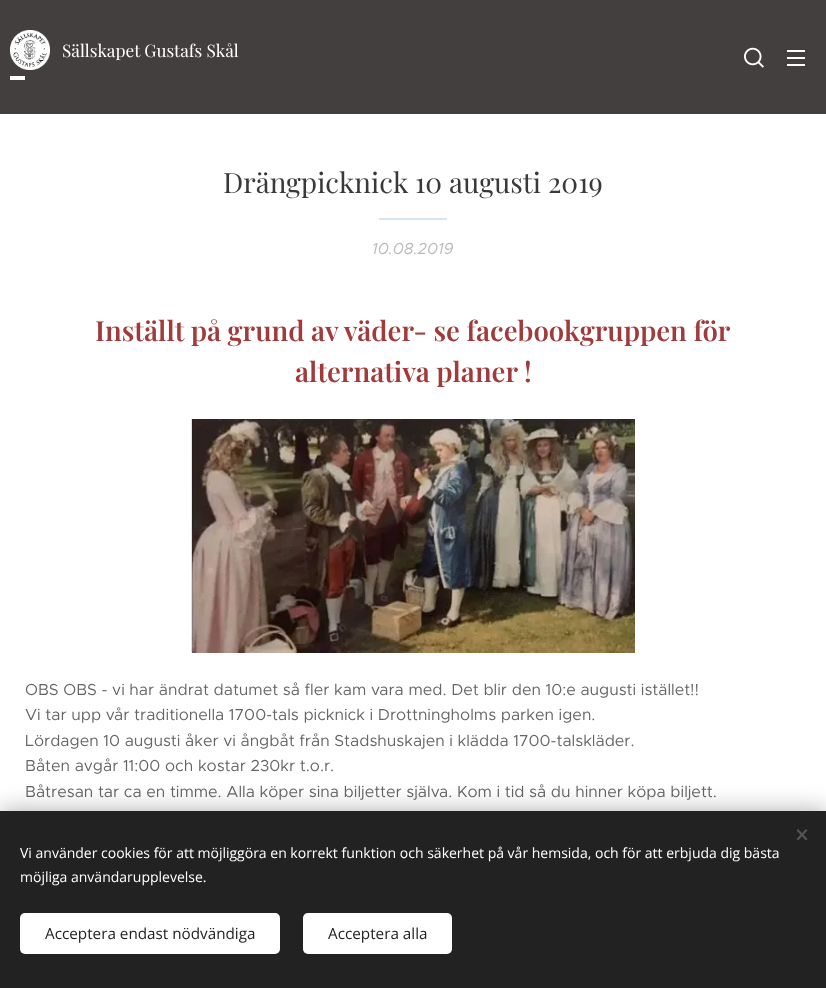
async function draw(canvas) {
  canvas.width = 826;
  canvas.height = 988;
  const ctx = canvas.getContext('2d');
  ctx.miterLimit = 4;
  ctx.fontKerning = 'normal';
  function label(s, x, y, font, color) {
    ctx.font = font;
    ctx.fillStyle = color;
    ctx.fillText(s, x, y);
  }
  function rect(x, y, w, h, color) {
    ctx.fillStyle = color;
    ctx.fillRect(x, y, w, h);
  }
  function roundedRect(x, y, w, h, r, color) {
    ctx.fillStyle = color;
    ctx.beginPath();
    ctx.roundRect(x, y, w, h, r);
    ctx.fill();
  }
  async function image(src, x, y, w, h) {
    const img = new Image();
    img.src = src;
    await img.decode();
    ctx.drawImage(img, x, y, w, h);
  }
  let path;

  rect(0, 0, 826, 988, '#fff');
  rect(0, 0, 826, 114, '#443f3f');
  await image('assets/img1.png', 10, 30, 40, 40);
  label('Sällskapet Gustafs Skål', 62, 57, '17.25px Playfair Display', '#fff');
  rect(10, 76, 15, 4, '#fff');
  await image('assets/img2.png', 744, 47, 20, 21);
  rect(787, 57, 18, 2, '#fff');
  rect(787, 50, 18, 2, '#fff');
  rect(787, 64, 18, 2, '#fff');
  label('Drängpicknick 10 augusti 2019', 223, 193, '28px Playfair Display', '#393939');
  rect(379, 218, 68, 2, '#d6e5ef');
  label('10.08.2019', 372, 254, 'italic 16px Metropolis', '#bababa');
  label('Inställt på grund av väder- se facebookgruppen för', 95, 341, '600 27.5px Playfair Display', '#a13a3b');
  label('alternativa planer !', 295, 382, '600 27.5px Playfair Display', '#a13a3b');
  await image('assets/img3.png', 191, 419, 444, 234);
  label('OBS OBS - vi har ändrat datumet så fler kam vara med. Det blir den 10:e augusti istället!!', 25, 695, '16px Metropolis', '#666');
  label('Vi tar upp vår traditionella 1700-tals picknick i Drottningholms parken igen.', 25, 720, '16px Metropolis', '#666');
  label('Lördagen 10 augusti åker vi ångbåt från Stadshuskajen i klädda 1700-talskläder.', 25, 746, '16px Metropolis', '#666');
  label('Båten avgår 11:00 och kostar 230kr t.o.r.', 25, 771, '16px Metropolis', '#666');
  label('Båtresan tar ca en timme. Alla köper sina biljetter själva. Kom i tid så du hinner köpa biljett.', 25, 797, '16px Metropolis', '#666');
  ctx.fillStyle = '#00000054';
  ctx.filter = 'blur(12.5px)';
  ctx.beginPath();
  ctx.rect(0, 811, 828, 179);
  ctx.fill();
  ctx.filter = 'none';
  rect(0, 811, 826, 177, '#222');
  ctx.fillStyle = '#555';
  path = new Path2D('M796.5 839L806 829L807.5 830.5L798 840.5Z');
  ctx.fill(path);
  path = new Path2D('M798 829L807.5 839L806 840.5L796.5 830.5Z');
  ctx.fill(path);
  label('Vi använder cookies för att möjliggöra en korrekt funktion och säkerhet på vår hemsida, och för att erbjuda dig bästa', 20, 858, '14px Open Sans', '#fff');
  label('möjliga användarupplevelse.', 20, 882, '14px Open Sans', '#fff');
  roundedRect(20, 913, 260, 41, 5, '#fff');
  label('Acceptera endast nödvändiga', 45, 939, '15.25px Open Sans', '#222');
  roundedRect(303, 913, 149, 41, 5, '#fff');
  label('Acceptera alla', 328, 939, '15.25px Open Sans', '#222');
}

draw(document.querySelector('canvas'));
